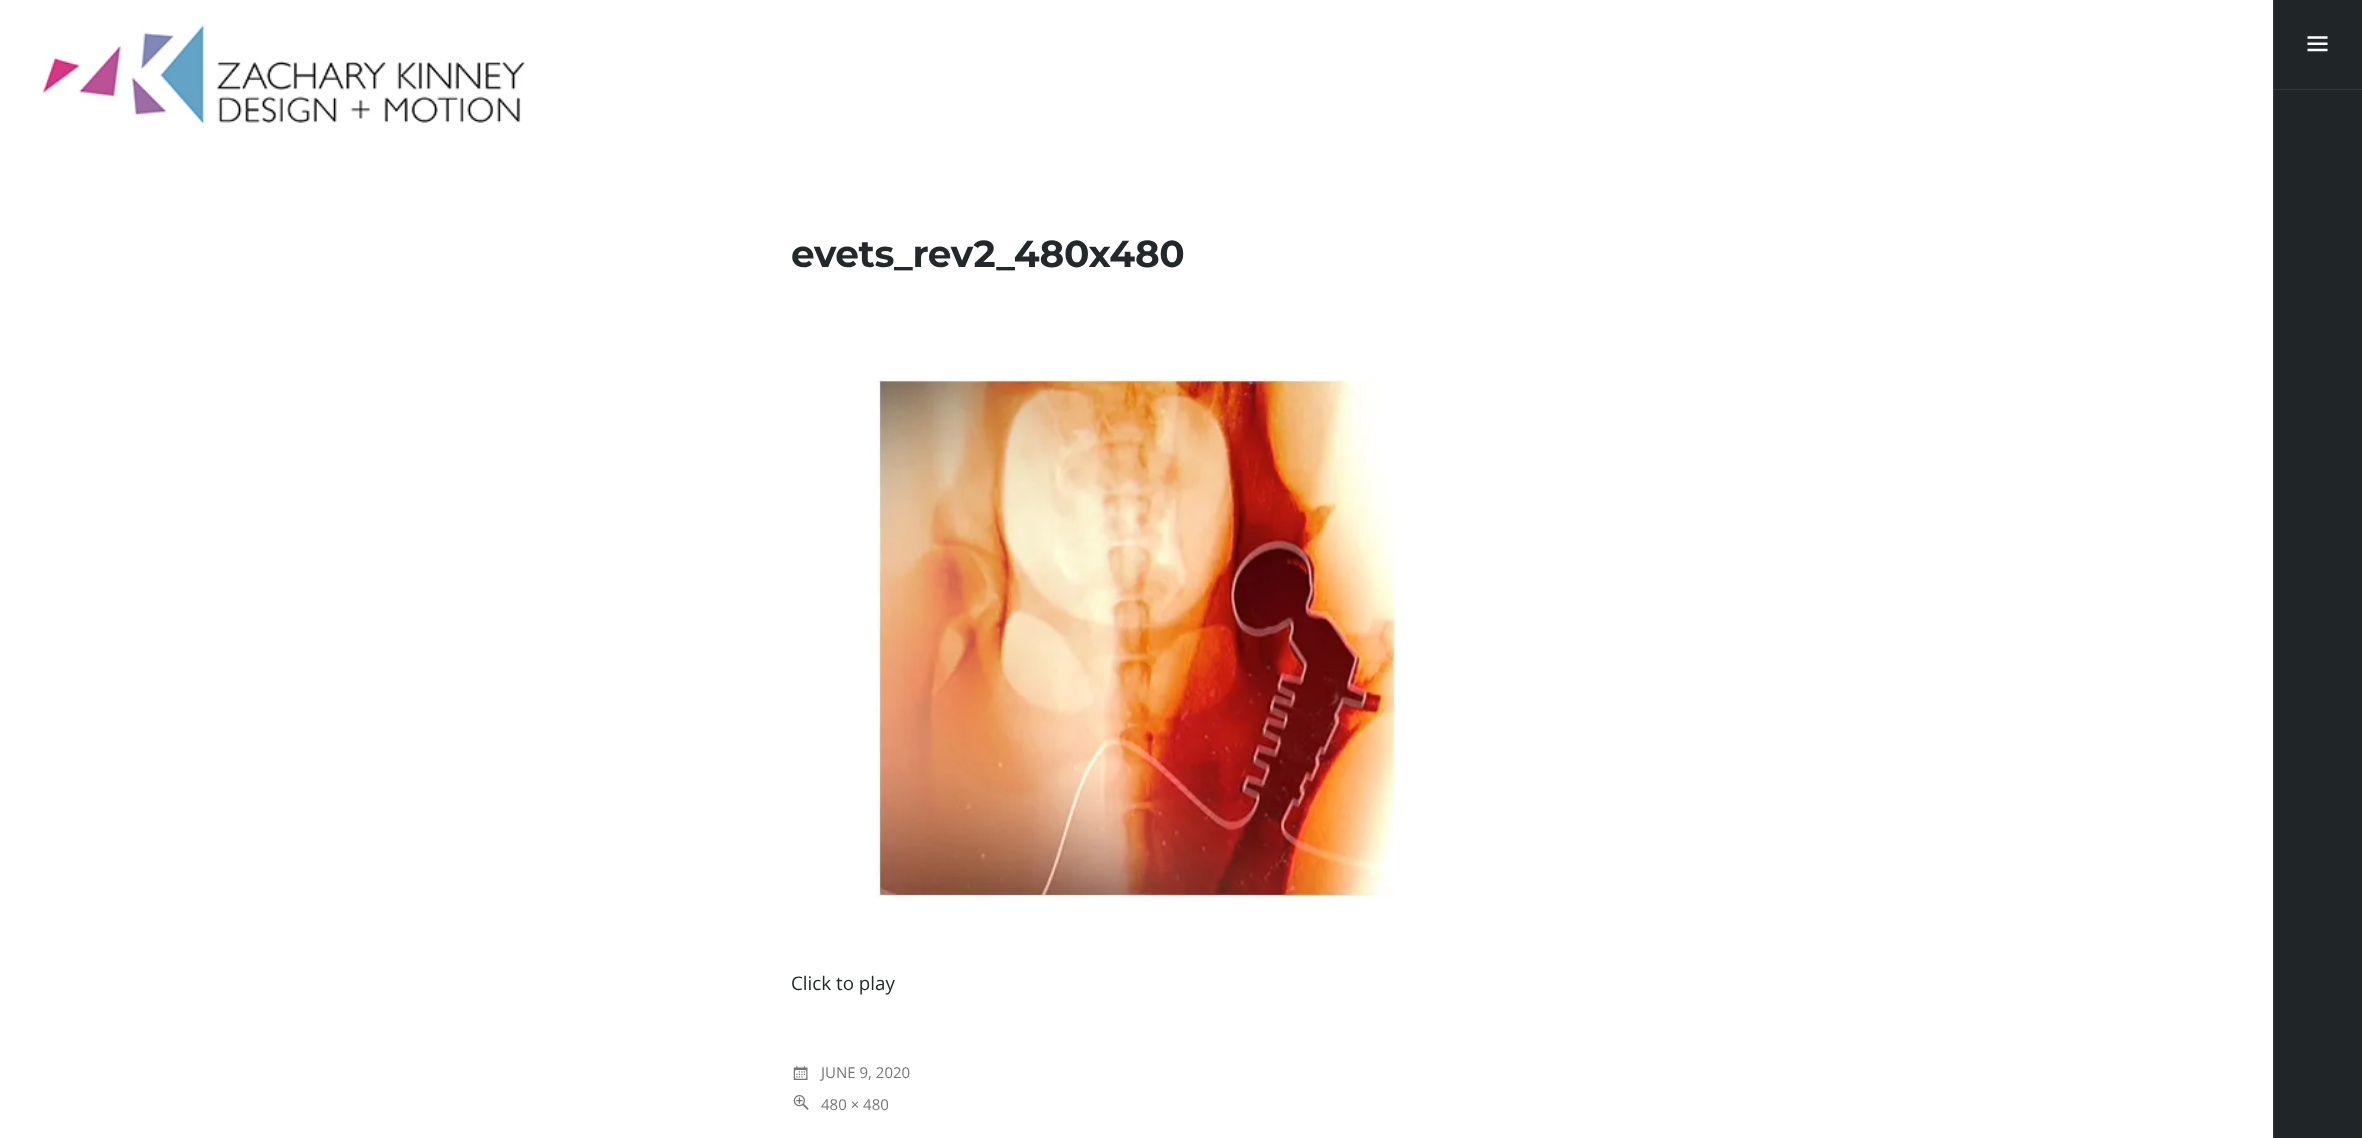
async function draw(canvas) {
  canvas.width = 2362;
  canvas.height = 1138;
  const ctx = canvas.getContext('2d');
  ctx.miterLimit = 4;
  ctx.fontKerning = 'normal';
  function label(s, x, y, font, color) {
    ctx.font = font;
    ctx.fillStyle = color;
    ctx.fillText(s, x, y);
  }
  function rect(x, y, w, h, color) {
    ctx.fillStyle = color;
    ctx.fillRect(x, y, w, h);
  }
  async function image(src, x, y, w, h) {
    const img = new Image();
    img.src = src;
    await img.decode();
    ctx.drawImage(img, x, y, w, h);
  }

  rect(0, 0, 2362, 1138, '#fff');
  await image('assets/img1.png', 42, 25, 483, 99);
  rect(2274, 0, 88, 1138, '#202628');
  await image('assets/img2.png', 2307, 36, 21, 16);
  ctx.letterSpacing = '-0.4px';
  label('evets_rev2_480x480', 791, 267, 'bold 37.5px Montserrat', '#23292b');
  await image('assets/img3.png', 836, 377, 600, 521);
  ctx.letterSpacing = '0px';
  label('Click to play', 791, 990, '18.75px Open Sans', '#23292b');
  await image('assets/img4.png', 793, 1066, 15, 14);
  label('JUNE 9, 2020', 821, 1078, '15px Open Sans', '#737678');
  await image('assets/img5.png', 793, 1095, 16, 15);
  label('480 × 480', 821, 1110, '15px Open Sans', '#737678');
  rect(2273, 89, 89, 1, '#363c3e');
  rect(2273, 0, 1, 1138, '#363c3e');
  rect(2273, 89, 1, 1, '#4a5051');
}

draw(document.querySelector('canvas'));
